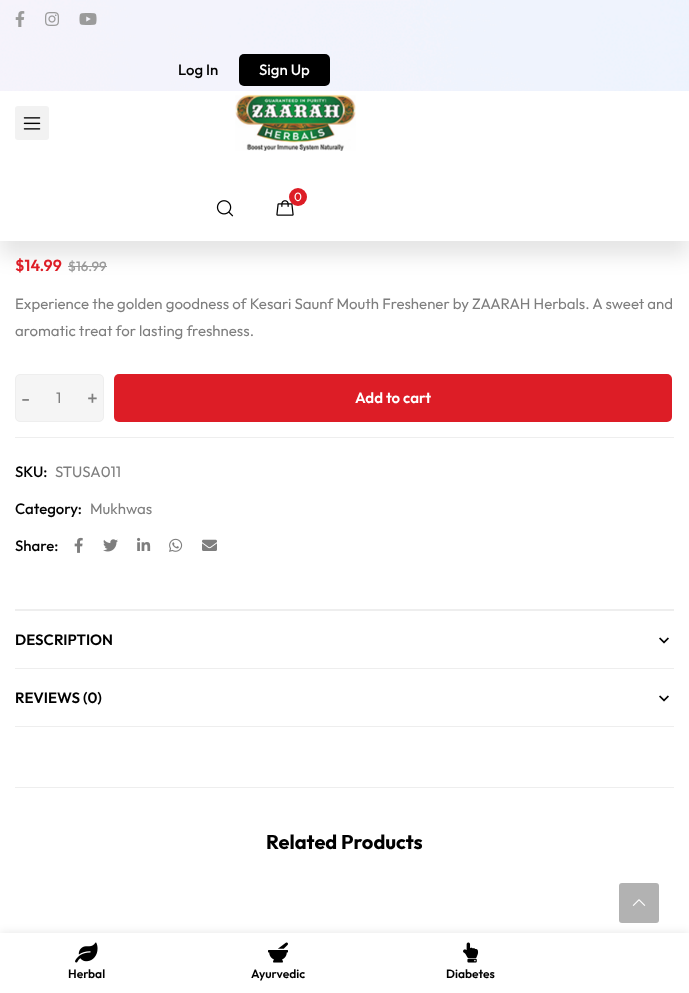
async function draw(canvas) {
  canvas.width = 689;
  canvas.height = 993;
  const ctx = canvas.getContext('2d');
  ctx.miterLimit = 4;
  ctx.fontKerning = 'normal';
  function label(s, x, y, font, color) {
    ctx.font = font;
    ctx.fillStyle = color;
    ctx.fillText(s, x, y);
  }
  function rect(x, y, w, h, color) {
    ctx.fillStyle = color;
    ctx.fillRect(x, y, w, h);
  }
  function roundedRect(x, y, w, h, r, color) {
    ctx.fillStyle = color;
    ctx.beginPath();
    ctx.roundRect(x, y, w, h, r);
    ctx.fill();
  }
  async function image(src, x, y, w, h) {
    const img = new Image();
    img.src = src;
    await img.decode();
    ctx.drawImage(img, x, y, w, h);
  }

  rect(0, 0, 689, 993, '#fff');
  rect(68, 266, 39, 1, '#9b9b9b');
  ctx.fillStyle = '#0000001a';
  ctx.filter = 'blur(10px)';
  ctx.beginPath();
  ctx.rect(0, 15, 689, 241);
  ctx.fill();
  ctx.filter = 'none';
  rect(0, 91, 689, 150, '#fff');
  await image('assets/img1.png', 0, 0, 689, 91);
  await image('assets/img2.png', 15, 11, 10, 16);
  await image('assets/img3.png', 45, 12, 14, 14);
  await image('assets/img4.png', 79, 13, 18, 12);
  label('Log In', 178, 75, '500 15px Outfit', '#000');
  roundedRect(239, 54, 91, 32, 5, '#000');
  label('Sign Up', 259, 75, '500 15px Outfit', '#fff');
  roundedRect(15, 106, 34, 34, 3, '#f2f2f2');
  await image('assets/img5.png', 23, 117, 18, 13);
  await image('assets/img6.png', 235, 94, 121, 57);
  await image('assets/img7.png', 276, 200, 18, 16);
  ctx.fillStyle = '#dd1d26';
  ctx.beginPath();
  ctx.arc(298, 197, 9, 0, 2 * Math.PI);
  ctx.fill();
  label('0', 294, 201, '12px Outfit', '#fff');
  await image('assets/img8.png', 216, 200, 18, 17);
  label('$14.99', 15, 271, '600 16px Outfit', '#dd1d26');
  label('$16.99', 68, 271, '500 13.5px Outfit', '#9b9b9b');
  label('Experience the golden goodness of Kesari Saunf Mouth Freshener by ZAARAH Herbals. A sweet and', 15, 309, '15px Outfit', '#7e7e7e');
  label('aromatic treat for lasting freshness.', 15, 336, '15px Outfit', '#7e7e7e');
  ctx.fillStyle = '#f5f5f5';
  ctx.beginPath();
  ctx.roundRect(15.5, 374.5, 88, 47, 4.5);
  ctx.fill();
  ctx.strokeStyle = '#eee';
  ctx.stroke();
  label('-', 21, 405, '20px Outfit', '#7e7e7e');
  label('1', 56, 403, '15px Outfit', '#7e7e7e');
  label('+', 87, 405, '20px Outfit', '#7e7e7e');
  roundedRect(114, 374, 558, 48, 5, '#dd1d26');
  label('Add to cart', 355, 403, '600 15px Outfit', '#fff');
  rect(15, 437, 659, 1, '#eee');
  label('SKU:', 15, 477, '500 15px Outfit', '#000');
  label('STUSA011', 55, 477, '15px Outfit', '#7e7e7e');
  label('Category:', 15, 514, '500 15px Outfit', '#000');
  label('Mukhwas', 90, 514, '15px Outfit', '#7e7e7e');
  label('Share:', 15, 551, '500 15px Outfit', '#000');
  await image('assets/img9.png', 74, 537, 9, 16);
  await image('assets/img10.png', 103, 539, 15, 13);
  await image('assets/img11.png', 137, 537, 14, 14);
  await image('assets/img12.png', 169, 538, 14, 14);
  await image('assets/img13.png', 202, 539, 15, 12);
  rect(15, 609, 659, 2, '#eee');
  rect(15, 668, 659, 1, '#eee');
  label('DESCRIPTION', 15, 645, '600 15px Outfit', '#000');
  await image('assets/img14.png', 659, 637, 10, 7);
  rect(15, 726, 659, 1, '#eee');
  label('REVIEWS (0)', 15, 703, '600 15px Outfit', '#000');
  await image('assets/img14.png', 659, 695, 10, 7);
  rect(15, 787, 659, 1, '#eee');
  label('Related Products', 266, 849, 'bold 20px Outfit', '#000');
  await image('assets/img15.png', 25, 901, 263, 32);
  await image('assets/img16.png', 362, 901, 262, 32);
  ctx.fillStyle = '#0000001a';
  ctx.filter = 'blur(5px)';
  ctx.beginPath();
  ctx.rect(0, 933, 689, 60);
  ctx.fill();
  ctx.filter = 'none';
  roundedRect(619, 883, 40, 40, 3, '#b2b2b2');
  await image('assets/img17.png', 632, 899, 14, 7);
  rect(0, 933, 689, 60, '#fff');
  await image('assets/img18.png', 75, 942, 23, 21);
  label('Herbal', 68, 978, '600 12px Outfit', '#000');
  await image('assets/img19.png', 268, 942, 20, 21);
  label('Ayurvedic', 251, 978, '600 12px Outfit', '#000');
  await image('assets/img20.png', 463, 942, 16, 21);
  label('Diabetes', 446, 978, '600 12px Outfit', '#000');
}

draw(document.querySelector('canvas'));
